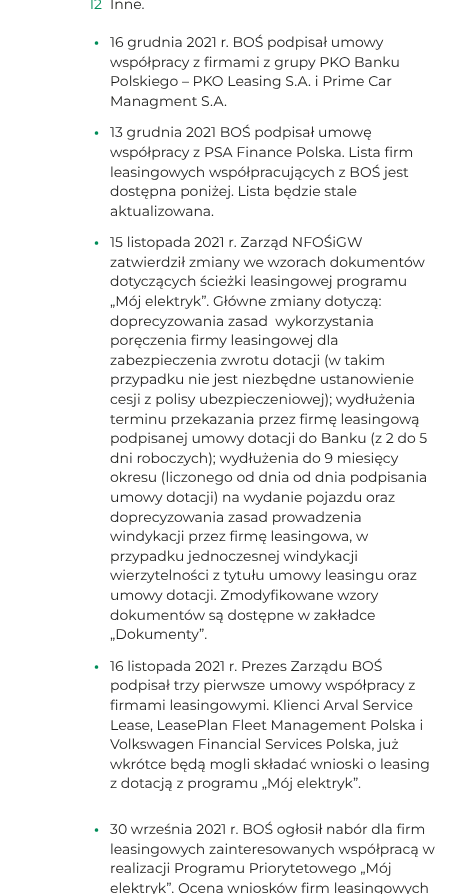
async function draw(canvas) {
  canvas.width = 466;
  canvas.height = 894;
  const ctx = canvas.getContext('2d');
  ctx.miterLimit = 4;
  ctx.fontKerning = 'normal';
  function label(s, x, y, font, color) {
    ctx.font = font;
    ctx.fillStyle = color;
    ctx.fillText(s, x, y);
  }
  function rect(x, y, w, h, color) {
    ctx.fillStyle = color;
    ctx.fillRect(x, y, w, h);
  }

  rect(0, 0, 466, 894, '#fff');
  label('12', 89, 9, '14px Montserrat', '#008c58');
  label('Inne.', 110, 9, '14px Montserrat', '#1d1d1b');
  label('•', 94, 47, 'bold 14px Montserrat', '#008c58');
  label('16 grudnia 2021 r. BOŚ podpisał umowy', 110, 47, '14px Montserrat', '#1d1d1b');
  label('współpracy z firmami z grupy PKO Banku', 110, 67, '14px Montserrat', '#1d1d1b');
  label('Polskiego – PKO Leasing S.A. i Prime Car', 110, 86, '14px Montserrat', '#1d1d1b');
  label('Managment S.A.', 110, 106, '14px Montserrat', '#1d1d1b');
  label('•', 94, 137, 'bold 14px Montserrat', '#008c58');
  label('13 grudnia 2021 BOŚ podpisał umowę', 110, 137, '14px Montserrat', '#1d1d1b');
  label('współpracy z PSA Finance Polska. Lista firm', 110, 157, '14px Montserrat', '#1d1d1b');
  label('leasingowych współpracujących z BOŚ jest', 110, 177, '14px Montserrat', '#1d1d1b');
  label('dostępna poniżej. Lista będzie stale', 110, 196, '14px Montserrat', '#1d1d1b');
  label('aktualizowana.', 110, 216, '14px Montserrat', '#1d1d1b');
  label('•', 94, 247, 'bold 14px Montserrat', '#008c58');
  label('15 listopada 2021 r. Zarząd NFOŚiGW', 110, 247, '14px Montserrat', '#1d1d1b');
  label('zatwierdził zmiany we wzorach dokumentów', 110, 267, '14px Montserrat', '#1d1d1b');
  label('dotyczących ścieżki leasingowej programu', 110, 286, '14px Montserrat', '#1d1d1b');
  label('„Mój elektryk”. Główne zmiany dotyczą:', 110, 306, '14px Montserrat', '#1d1d1b');
  label('doprecyzowania zasad  wykorzystania', 110, 326, '14px Montserrat', '#1d1d1b');
  label('poręczenia firmy leasingowej dla', 110, 345, '14px Montserrat', '#1d1d1b');
  label('zabezpieczenia zwrotu dotacji (w takim', 110, 365, '14px Montserrat', '#1d1d1b');
  label('przypadku nie jest niezbędne ustanowienie', 110, 384, '14px Montserrat', '#1d1d1b');
  label('cesji z polisy ubezpieczeniowej); wydłużenia', 110, 404, '14px Montserrat', '#1d1d1b');
  label('terminu przekazania przez firmę leasingową', 110, 424, '14px Montserrat', '#1d1d1b');
  label('podpisanej umowy dotacji do Banku (z 2 do 5', 110, 443, '14px Montserrat', '#1d1d1b');
  label('dni roboczych); wydłużenia do 9 miesięcy', 110, 463, '14px Montserrat', '#1d1d1b');
  label('okresu (liczonego od dnia od dnia podpisania', 110, 482, '14px Montserrat', '#1d1d1b');
  label('umowy dotacji) na wydanie pojazdu oraz', 110, 502, '14px Montserrat', '#1d1d1b');
  label('doprecyzowania zasad prowadzenia', 110, 522, '14px Montserrat', '#1d1d1b');
  label('windykacji przez firmę leasingowa, w', 110, 541, '14px Montserrat', '#1d1d1b');
  label('przypadku jednoczesnej windykacji', 110, 561, '14px Montserrat', '#1d1d1b');
  label('wierzytelności z tytułu umowy leasingu oraz', 110, 580, '14px Montserrat', '#1d1d1b');
  label('umowy dotacji. Zmodyfikowane wzory', 110, 600, '14px Montserrat', '#1d1d1b');
  label('dokumentów są dostępne w zakładce', 110, 620, '14px Montserrat', '#1d1d1b');
  label('„Dokumenty”.', 110, 639, '14px Montserrat', '#1d1d1b');
  label('•', 94, 671, 'bold 14px Montserrat', '#008c58');
  label('16 listopada 2021 r. Prezes Zarządu BOŚ', 110, 671, '14px Montserrat', '#1d1d1b');
  label('podpisał trzy pierwsze umowy współpracy z', 110, 690, '14px Montserrat', '#1d1d1b');
  label('firmami leasingowymi. Klienci Arval Service', 110, 710, '14px Montserrat', '#1d1d1b');
  label('Lease, LeasePlan Fleet Management Polska i', 110, 730, '14px Montserrat', '#1d1d1b');
  label('Volkswagen Financial Services Polska, już', 110, 749, '14px Montserrat', '#1d1d1b');
  label('wkrótce będą mogli składać wnioski o leasing', 110, 769, '14px Montserrat', '#1d1d1b');
  label('z dotacją z programu „Mój elektryk”.', 110, 788, '14px Montserrat', '#1d1d1b');
  label('•', 94, 834, 'bold 14px Montserrat', '#008c58');
  label('30 września 2021 r. BOŚ ogłosił nabór dla firm', 110, 834, '14px Montserrat', '#1d1d1b');
  label('leasingowych zainteresowanych współpracą w', 110, 854, '14px Montserrat', '#1d1d1b');
  label('realizacji Programu Priorytetowego „Mój', 110, 873, '14px Montserrat', '#1d1d1b');
  label('elektryk”. Ocena wniosków firm leasingowych', 110, 893, '14px Montserrat', '#1d1d1b');
}

draw(document.querySelector('canvas'));
